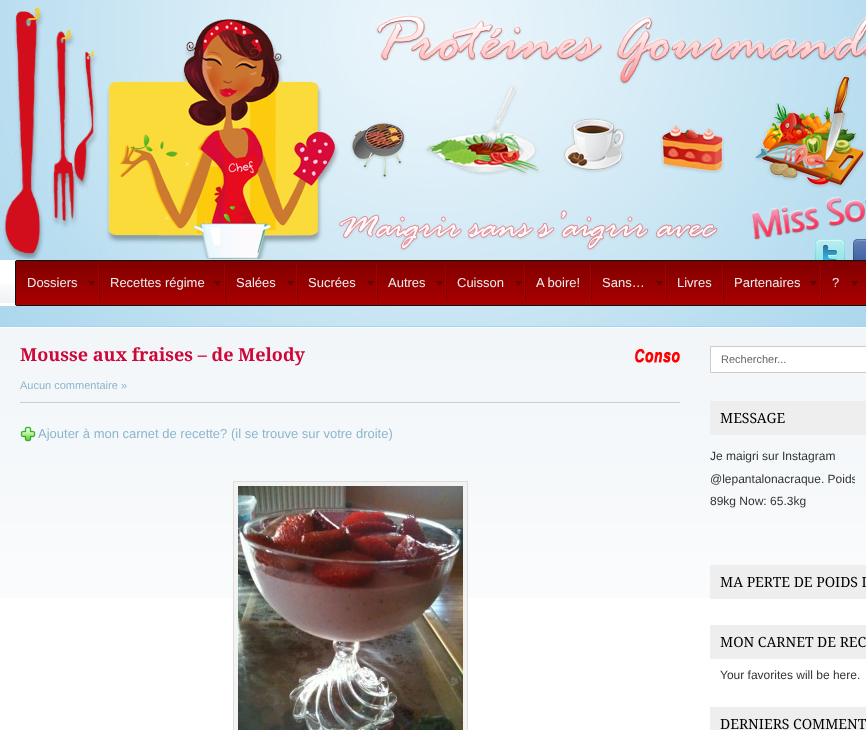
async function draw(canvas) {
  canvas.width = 866;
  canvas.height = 730;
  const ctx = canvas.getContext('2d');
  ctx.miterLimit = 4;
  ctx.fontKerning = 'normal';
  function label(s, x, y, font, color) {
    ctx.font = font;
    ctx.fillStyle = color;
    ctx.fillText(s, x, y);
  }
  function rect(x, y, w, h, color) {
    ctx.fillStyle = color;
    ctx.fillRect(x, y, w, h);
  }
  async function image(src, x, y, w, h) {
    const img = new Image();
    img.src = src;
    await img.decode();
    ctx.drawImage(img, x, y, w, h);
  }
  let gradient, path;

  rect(0, 0, 866, 730, '#fff');
  await image('assets/img1.png', 0, 0, 866, 326);
  await image('assets/img2.png', 1, 7, 865, 252);
  await image('assets/img3.png', 815, 239, 30, 21);
  await image('assets/img4.png', 853, 239, 13, 21);
  rect(0, 260, 17, 46, '#fff');
  await image('assets/img5.png', 0, 284, 15, 19);
  gradient = ctx.createLinearGradient(16, 261, 16, 305);
  gradient.addColorStop(0, '#800000');
  gradient.addColorStop(1, '#a00');
  ctx.fillStyle = gradient;
  ctx.fillRect(15, 261, 851, 44);
  ctx.beginPath();
  ctx.roundRect(15.5, 260.5, 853, 45, 1.5);
  ctx.strokeStyle = '#111';
  ctx.stroke();
  await image('assets/img6.png', 88, 281, 7, 5);
  path = new Path2D('M98 265C98 265.5 98.5 266.5 98.5 267V299C98.5 299.5 98 300.5 98 301');
  ctx.strokeStyle = '#a00';
  ctx.stroke(path);
  label('Dossiers', 27, 287, '13px Liberation Sans', '#eee');
  await image('assets/img6.png', 214, 281, 7, 5);
  path = new Path2D('M224 265C224 265.5 224.5 266.5 224.5 267V299C224.5 299.5 224 300.5 224 301');
  ctx.stroke(path);
  path = new Path2D('M100 301C100 300.5 99.5 299.5 99.5 299V267C99.5 266.5 100 265.5 100 265');
  ctx.strokeStyle = '#800000';
  ctx.stroke(path);
  label('Recettes régime', 110, 287, '13px Liberation Sans', '#eee');
  await image('assets/img6.png', 287, 281, 7, 5);
  path = new Path2D('M296 265C296 265.5 296.5 266.5 296.5 267V299C296.5 299.5 296 300.5 296 301');
  ctx.strokeStyle = '#a00';
  ctx.stroke(path);
  path = new Path2D('M226 301C226 300.5 225.5 299.5 225.5 299V267C225.5 266.5 226 265.5 226 265');
  ctx.strokeStyle = '#800000';
  ctx.stroke(path);
  label('Salées', 236, 287, '13px Liberation Sans', '#eee');
  await image('assets/img6.png', 367, 281, 7, 5);
  path = new Path2D('M376 265C376 265.5 376.5 266.5 376.5 267V299C376.5 299.5 376 300.5 376 301');
  ctx.strokeStyle = '#a00';
  ctx.stroke(path);
  path = new Path2D('M298 301C298 300.5 297.5 299.5 297.5 299V267C297.5 266.5 298 265.5 298 265');
  ctx.strokeStyle = '#800000';
  ctx.stroke(path);
  label('Sucrées', 308, 287, '13px Liberation Sans', '#eee');
  await image('assets/img6.png', 436, 281, 7, 5);
  path = new Path2D('M445 265C445 265.5 445.5 266.5 445.5 267V299C445.5 299.5 445 300.5 445 301');
  ctx.strokeStyle = '#a00';
  ctx.stroke(path);
  path = new Path2D('M378 301C378 300.5 377.5 299.5 377.5 299V267C377.5 266.5 378 265.5 378 265');
  ctx.strokeStyle = '#800000';
  ctx.stroke(path);
  label('Autres', 388, 287, '13px Liberation Sans', '#eee');
  await image('assets/img6.png', 515, 281, 7, 5);
  path = new Path2D('M524 265C524 265.5 524.5 266.5 524.5 267V299C524.5 299.5 524 300.5 524 301');
  ctx.strokeStyle = '#a00';
  ctx.stroke(path);
  path = new Path2D('M447 301C447 300.5 446.5 299.5 446.5 299V267C446.5 266.5 447 265.5 447 265');
  ctx.strokeStyle = '#800000';
  ctx.stroke(path);
  label('Cuisson', 457, 287, '13px Liberation Sans', '#eee');
  path = new Path2D('M590 265C590 265.5 590.5 266.5 590.5 267V299C590.5 299.5 590 300.5 590 301');
  ctx.strokeStyle = '#a00';
  ctx.stroke(path);
  path = new Path2D('M526 301C526 300.5 525.5 299.5 525.5 299V267C525.5 266.5 526 265.5 526 265');
  ctx.strokeStyle = '#800000';
  ctx.stroke(path);
  label('A boire!', 536, 287, '13px Liberation Sans', '#eee');
  await image('assets/img6.png', 656, 281, 7, 5);
  path = new Path2D('M665 265C665 265.5 665.5 266.5 665.5 267V299C665.5 299.5 665 300.5 665 301');
  ctx.strokeStyle = '#a00';
  ctx.stroke(path);
  path = new Path2D('M592 301C592 300.5 591.5 299.5 591.5 299V267C591.5 266.5 592 265.5 592 265');
  ctx.strokeStyle = '#800000';
  ctx.stroke(path);
  label('Sans…', 602, 287, '13px Liberation Sans', '#eee');
  path = new Path2D('M722 265C722 265.5 722.5 266.5 722.5 267V299C722.5 299.5 722 300.5 722 301');
  ctx.strokeStyle = '#a00';
  ctx.stroke(path);
  path = new Path2D('M667 301C667 300.5 666.5 299.5 666.5 299V267C666.5 266.5 667 265.5 667 265');
  ctx.strokeStyle = '#800000';
  ctx.stroke(path);
  label('Livres', 677, 287, '13px Liberation Sans', '#eee');
  await image('assets/img6.png', 810, 281, 7, 5);
  path = new Path2D('M820 265C820 265.5 820.5 266.5 820.5 267V299C820.5 299.5 820 300.5 820 301');
  ctx.strokeStyle = '#a00';
  ctx.stroke(path);
  path = new Path2D('M724 301C724 300.5 723.5 299.5 723.5 299V267C723.5 266.5 724 265.5 724 265');
  ctx.strokeStyle = '#800000';
  ctx.stroke(path);
  label('Partenaires', 734, 287, '13px Liberation Sans', '#eee');
  await image('assets/img6.png', 851, 281, 7, 5);
  path = new Path2D('M822 301C822 300.5 821.5 299.5 821.5 299V267C821.5 266.5 822 265.5 822 265');
  ctx.stroke(path);
  label('?', 832, 287, '13px Liberation Sans', '#eee');
  await image('assets/img7.png', 0, 326, 866, 272);
  label('Mousse aux fraises – de Melody', 20, 361, 'bold 18px Droid Serif', '#cf0638');
  await image('assets/img8.png', 635, 349, 45, 14);
  rect(20, 402, 660, 1, '#ccc');
  label('Aucun commentaire »', 20, 389, '11px Liberation Sans', '#8db6cd');
  await image('assets/img9.png', 20, 426, 16, 16);
  label('Ajouter à mon carnet de recette? (il se trouve sur votre droite)', 38, 438, '13px Liberation Sans', '#8db6cd');
  ctx.fillStyle = '#f3f3f3';
  ctx.beginPath();
  ctx.rect(233.5, 481.5, 234, 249);
  ctx.fill();
  ctx.strokeStyle = '#ddd';
  ctx.stroke();
  await image('assets/img10.png', 238, 486, 225, 244);
  ctx.fillStyle = '#fff';
  ctx.beginPath();
  ctx.rect(710.5, 346.5, 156, 26);
  ctx.fill();
  ctx.strokeStyle = '#ccc';
  ctx.stroke();
  label('Rechercher...', 721, 363, '11px Liberation Sans', '#666');
  rect(710, 401, 156, 34, '#eee');
  label('MESSAGE', 720, 423, '14px Droid Serif', '#000');
  label('Je maigri sur Instagram', 710, 460, '12px Liberation Sans', '#333');
  ctx.save();
  ctx.beginPath();
  ctx.rect(710, 445, 145, 100);
  ctx.clip();
  label('@lepantalonacraque. Poids', 710, 483, '12px Liberation Sans', '#333');
  ctx.restore();
  label('89kg Now: 65.3kg', 710, 505, '12px Liberation Sans', '#333');
  rect(710, 565, 156, 34, '#eee');
  label('MA PERTE DE POIDS I', 720, 587, '14px Droid Serif', '#000');
  rect(710, 625, 156, 34, '#eee');
  label('MON CARNET DE REC', 720, 647, '14px Droid Serif', '#000');
  label('Your favorites will be here.', 720, 679, '12px Liberation Sans', '#333');
  rect(710, 707, 156, 23, '#eee');
  label('DERNIERS COMMENT', 720, 729, '14px Droid Serif', '#000');
}

draw(document.querySelector('canvas'));
